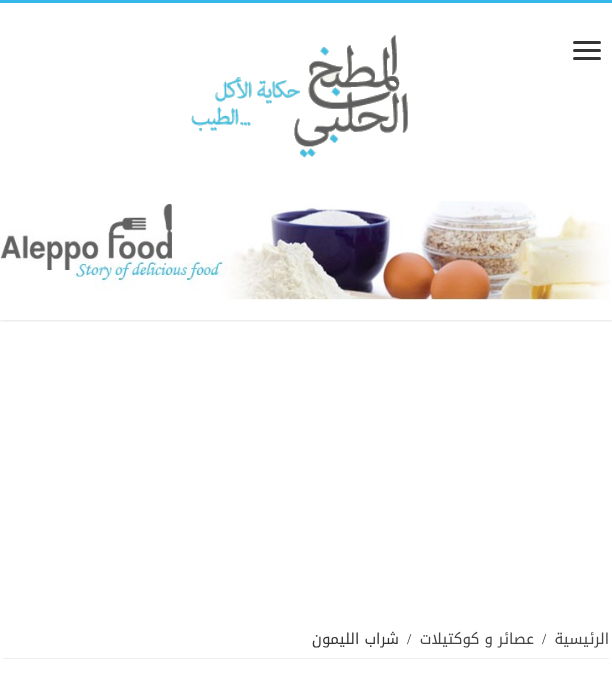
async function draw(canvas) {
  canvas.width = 612;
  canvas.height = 683;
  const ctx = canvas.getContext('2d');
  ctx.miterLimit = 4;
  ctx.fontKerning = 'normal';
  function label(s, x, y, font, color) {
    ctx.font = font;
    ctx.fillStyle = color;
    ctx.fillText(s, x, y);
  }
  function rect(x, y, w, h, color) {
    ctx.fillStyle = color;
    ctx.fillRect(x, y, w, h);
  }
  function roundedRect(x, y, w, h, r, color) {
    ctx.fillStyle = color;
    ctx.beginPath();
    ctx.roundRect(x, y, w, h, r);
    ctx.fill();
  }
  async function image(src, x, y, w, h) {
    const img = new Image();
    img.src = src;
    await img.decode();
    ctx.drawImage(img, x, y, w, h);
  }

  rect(0, 0, 612, 683, '#fff');
  ctx.save();
  ctx.beginPath();
  ctx.rect(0, 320, 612, 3);
  ctx.clip();
  ctx.fillStyle = '#cacaca';
  ctx.filter = 'blur(1.5px)';
  ctx.beginPath();
  ctx.rect(0, 0, 612, 320);
  ctx.fill();
  ctx.filter = 'none';
  ctx.restore();
  rect(0, 0, 612, 3, '#37b8eb');
  roundedRect(573, 41, 28, 3, 1.5, '#333');
  roundedRect(573, 49, 28, 3, 1.5, '#333');
  roundedRect(573, 57, 28, 3, 1.5, '#333');
  await image('assets/img1.png', 191, 35, 217, 123);
  await image('assets/img2.png', 0, 201, 610, 99);
  rect(3, 658, 606, 1, '#eee');
  ctx.direction = 'rtl';
  label('الرئيسية', 609, 644, '15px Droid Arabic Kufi', '#444');
  ctx.direction = 'ltr';
  label('/', 542, 644, '15px Liberation Serif', '#333');
  ctx.direction = 'rtl';
  label('عصائر و كوكتيلات', 534, 644, '15px Droid Arabic Kufi', '#444');
  ctx.direction = 'ltr';
  label('/', 407, 644, '15px Liberation Serif', '#333');
  ctx.direction = 'rtl';
  label('شراب الليمون', 399, 644, '15px Droid Arabic Kufi', '#333');
}

draw(document.querySelector('canvas'));
